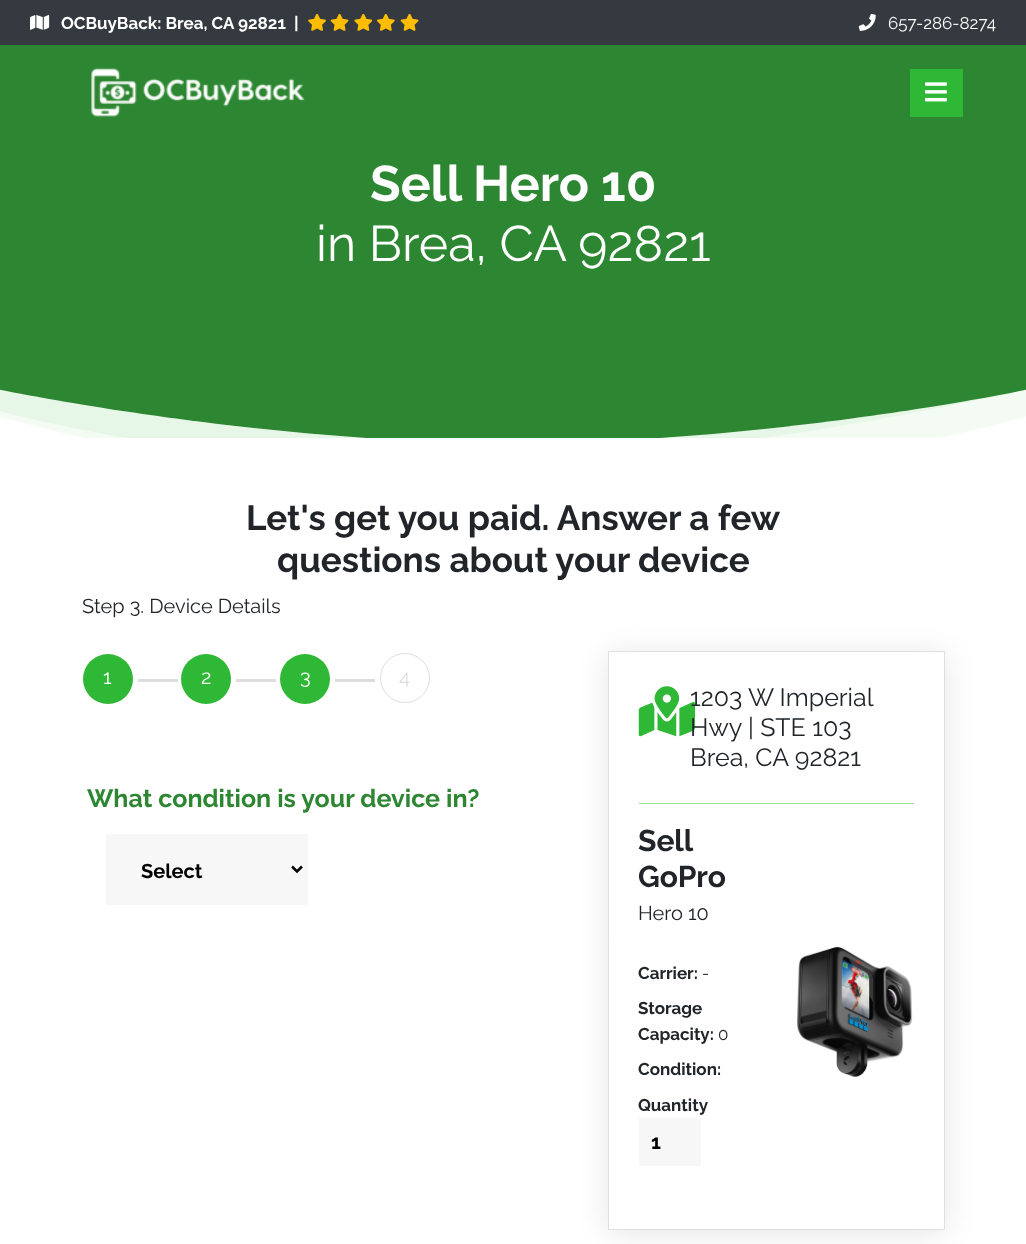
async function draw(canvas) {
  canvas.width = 1026;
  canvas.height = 1244;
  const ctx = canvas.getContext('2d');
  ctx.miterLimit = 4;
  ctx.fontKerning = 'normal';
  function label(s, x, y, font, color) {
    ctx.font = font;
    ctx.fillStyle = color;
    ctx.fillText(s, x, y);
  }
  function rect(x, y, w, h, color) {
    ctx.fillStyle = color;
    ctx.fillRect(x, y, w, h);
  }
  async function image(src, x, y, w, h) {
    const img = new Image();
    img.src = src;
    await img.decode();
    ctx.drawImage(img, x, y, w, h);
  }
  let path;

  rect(0, 0, 1026, 1244, '#fff');
  rect(0, 0, 1026, 45, '#343a40');
  await image('assets/img1.png', 30, 15, 20, 15);
  label('OCBuyBack: Brea, CA 92821', 61, 29, 'bold 17px Raleway', '#fff');
  label('|', 294, 29, 'bold 17px Raleway', '#fff');
  await image('assets/img2.png', 308, 13, 18, 18);
  await image('assets/img3.png', 330, 13, 19, 18);
  await image('assets/img4.png', 354, 13, 19, 18);
  await image('assets/img5.png', 377, 13, 18, 18);
  await image('assets/img3.png', 400, 13, 19, 18);
  await image('assets/img6.png', 858, 13, 18, 18);
  label('657-286-8274', 888, 29, '17px Raleway', '#fff');
  await image('assets/img7.png', 0, 45, 1026, 393);
  await image('assets/img8.png', 91, 68, 214, 49);
  rect(910, 69, 53, 48, '#2eb835');
  await image('assets/img9.png', 925, 82, 22, 20);
  label('Sell Hero 10', 370, 201, 'bold 50px Raleway', '#fff');
  label('in Brea, CA 92821', 316, 261, '50px Raleway', '#fff');
  label('Let\'s get you paid. Answer a few', 246, 530, 'bold 35px Raleway', '#212529');
  label('questions about your device', 277, 572, 'bold 35px Raleway', '#212529');
  label('Step 3. Device Details', 82, 613, '20px Raleway', '#212529');
  ctx.fillStyle = '#2eb835';
  ctx.beginPath();
  ctx.arc(108, 679, 25, 0, 2 * Math.PI);
  ctx.fill();
  label('1', 103, 684, '20px Raleway', '#fff');
  rect(138, 679, 40, 3, '#ddd');
  ctx.fillStyle = '#2eb835';
  ctx.beginPath();
  ctx.arc(206, 679, 25, 0, 2 * Math.PI);
  ctx.fill();
  label('2', 201, 684, '20px Raleway', '#fff');
  rect(236, 679, 40, 3, '#ddd');
  ctx.fillStyle = '#2eb835';
  ctx.beginPath();
  ctx.arc(305, 679, 25, 0, 2 * Math.PI);
  ctx.fill();
  label('3', 300, 684, '20px Raleway', '#fff');
  rect(335, 679, 40, 3, '#ddd');
  ctx.beginPath();
  ctx.arc(405, 678, 24.5, 0, 2 * Math.PI);
  ctx.strokeStyle = '#ddd';
  ctx.stroke();
  label('4', 399, 684, '20px Raleway', '#ddd');
  label('What condition is your device in?', 87, 807, 'bold 25px Raleway', '#2d8631');
  rect(106, 834, 202, 71, '#f7f7f7');
  path = new Path2D('M292 866.5L297 871.5L302 866.5');
  ctx.strokeStyle = '#000';
  ctx.lineWidth = 2.5;
  ctx.stroke(path);
  label('Select', 141, 878, 'bold 20px Raleway', '#000');
  ctx.fillStyle = '#0000001a';
  ctx.filter = 'blur(15px)';
  ctx.beginPath();
  ctx.rect(608, 654, 337, 579);
  ctx.fill();
  ctx.filter = 'none';
  ctx.fillStyle = '#fff';
  ctx.beginPath();
  ctx.rect(608.5, 651.5, 336, 578);
  ctx.fill();
  ctx.strokeStyle = '#dfdfdf';
  ctx.lineWidth = 1;
  ctx.stroke();
  await image('assets/img10.png', 638, 686, 57, 51);
  label('1203 W Imperial', 690, 706, '25px Raleway', '#212529');
  label('Hwy | STE 103', 690, 736, '25px Raleway', '#212529');
  label('Brea, CA 92821', 690, 766, '25px Raleway', '#212529');
  rect(639, 803, 275, 1, '#97dc9a');
  label('Sell', 638, 851, 'bold 30px Raleway', '#212529');
  label('GoPro', 638, 887, 'bold 30px Raleway', '#212529');
  label('Hero 10', 638, 920, '20px Raleway', '#212529');
  label('Carrier:', 638, 979, 'bold 17px Raleway', '#212529');
  label('-', 702, 979, '17px Raleway', '#212529');
  label('Storage', 638, 1014, 'bold 17px Raleway', '#212529');
  label('Capacity:', 638, 1040, 'bold 17px Raleway', '#212529');
  label('0', 718, 1040, '17px Raleway', '#212529');
  label('Condition:', 638, 1075, 'bold 17px Raleway', '#212529');
  label('Quantity', 638, 1111, 'bold 17px Raleway', '#212529');
  rect(639, 1118, 62, 48, '#f7f7f7');
  label('1', 651, 1149, 'bold 20px Raleway', '#000');
  await image('assets/img11.png', 797, 947, 116, 130);
}

draw(document.querySelector('canvas'));
